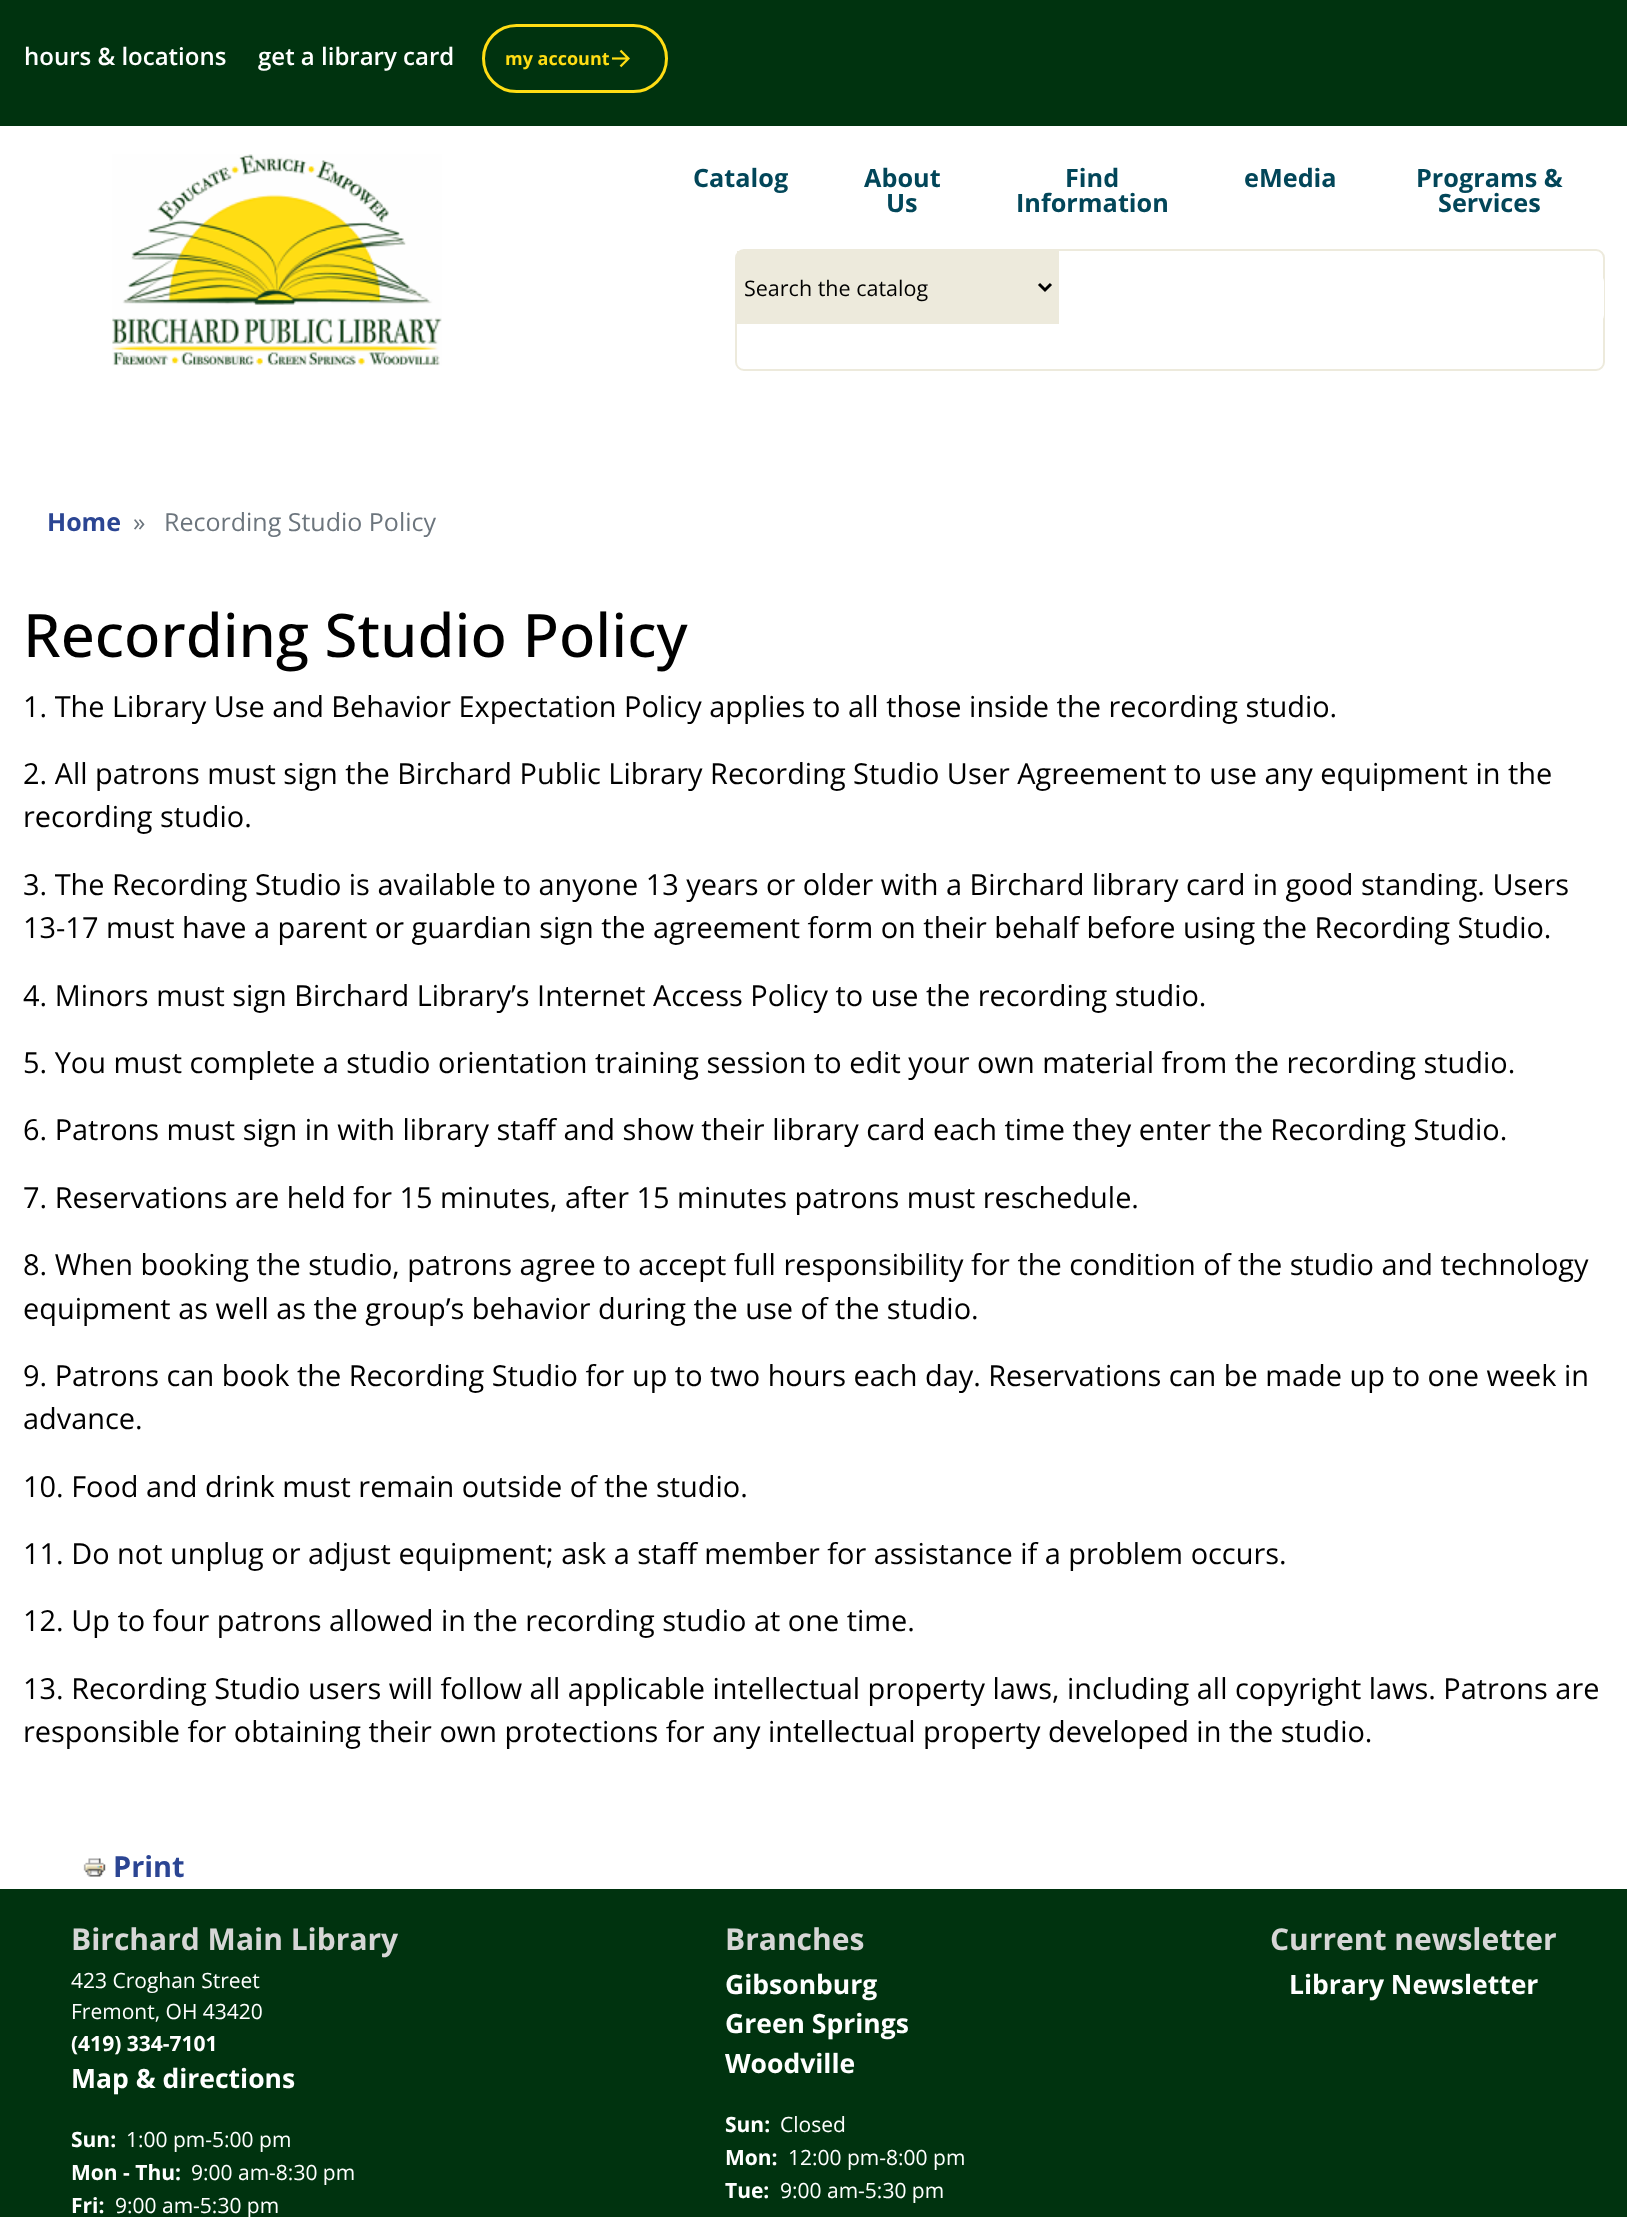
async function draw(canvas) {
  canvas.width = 1627;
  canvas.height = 2217;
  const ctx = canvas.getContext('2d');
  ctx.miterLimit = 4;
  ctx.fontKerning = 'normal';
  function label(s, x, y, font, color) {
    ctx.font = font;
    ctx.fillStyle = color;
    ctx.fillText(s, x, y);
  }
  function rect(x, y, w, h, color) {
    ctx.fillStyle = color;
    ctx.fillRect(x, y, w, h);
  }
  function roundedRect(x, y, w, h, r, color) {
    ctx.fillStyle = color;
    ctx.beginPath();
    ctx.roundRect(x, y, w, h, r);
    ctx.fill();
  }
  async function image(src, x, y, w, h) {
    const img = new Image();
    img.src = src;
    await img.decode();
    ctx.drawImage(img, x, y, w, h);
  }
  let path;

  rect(0, 0, 1627, 2217, '#fff');
  rect(0, 0, 1627, 126, '#00330f');
  label('hours & locations', 24, 65, '600 24px Open Sans', '#fff');
  label('get a library card', 258, 65, '600 24px Open Sans', '#fff');
  ctx.beginPath();
  ctx.roundRect(483.5, 25.5, 183, 66, 33);
  ctx.strokeStyle = '#ffdd14';
  ctx.lineWidth = 3;
  ctx.stroke();
  label('my account', 505, 65, 'bold 18px Open Sans', '#ffdd14');
  await image('assets/img1.png', 612, 49, 18, 19);
  await image('assets/img2.png', 112, 154, 330, 212);
  label('Catalog', 693, 187, 'bold 25.25px Open Sans', '#024659');
  label('About', 864, 187, 'bold 25.25px Open Sans', '#024659');
  label('Us', 886, 212, 'bold 25.25px Open Sans', '#024659');
  label('Find', 1065, 187, 'bold 25.25px Open Sans', '#024659');
  label('Information', 1016, 212, 'bold 25.25px Open Sans', '#024659');
  label('eMedia', 1244, 187, 'bold 25.25px Open Sans', '#024659');
  label('Programs &', 1416, 187, 'bold 25.25px Open Sans', '#024659');
  label('Services', 1438, 212, 'bold 25.25px Open Sans', '#024659');
  ctx.beginPath();
  ctx.roundRect(736, 250, 868, 120, 8);
  ctx.strokeStyle = '#edeadc';
  ctx.lineWidth = 2;
  ctx.stroke();
  rect(737, 251, 322, 73, '#edeadc');
  path = new Path2D('M1039 284L1045 290L1051 284');
  ctx.strokeStyle = '#000';
  ctx.lineWidth = 3;
  ctx.stroke(path);
  label('Search the catalog', 744, 296, '21.5px Open Sans', '#000');
  roundedRect(1059, 273, 545, 51, 9, '#fff');
  label('Home', 47, 531, 'bold 25px Open Sans', '#2b4593');
  label('»', 133, 531, '25px Open Sans', '#6c757d');
  label('Recording Studio Policy', 164, 531, '25px Open Sans', '#6c757d');
  label('Recording Studio Policy', 23, 657, '500 60px Open Sans', '#000');
  label('1. The Library Use and Behavior Expectation Policy applies to all those inside the recording studio.', 23, 717, '28.92px Open Sans', '#000');
  label('2. All patrons must sign the Birchard Public Library Recording Studio User Agreement to use any equipment in the', 23, 784, '28.92px Open Sans', '#000');
  label('recording studio.', 23, 827, '28.92px Open Sans', '#000');
  label('3. The Recording Studio is available to anyone 13 years or older with a Birchard library card in good standing. Users', 23, 895, '28.92px Open Sans', '#000');
  label('13-17 must have a parent or guardian sign the agreement form on their behalf before using the Recording Studio.', 23, 938, '28.92px Open Sans', '#000');
  label('4. Minors must sign Birchard Library’s Internet Access Policy to use the recording studio.', 23, 1006, '28.92px Open Sans', '#000');
  label('5. You must complete a studio orientation training session to edit your own material from the recording studio.', 23, 1073, '28.92px Open Sans', '#000');
  label('6. Patrons must sign in with library staff and show their library card each time they enter the Recording Studio.', 23, 1140, '28.92px Open Sans', '#000');
  label('7. Reservations are held for 15 minutes, after 15 minutes patrons must reschedule.', 23, 1208, '28.92px Open Sans', '#000');
  label('8. When booking the studio, patrons agree to accept full responsibility for the condition of the studio and technology', 23, 1275, '28.92px Open Sans', '#000');
  label('equipment as well as the group’s behavior during the use of the studio.', 23, 1319, '28.92px Open Sans', '#000');
  label('9. Patrons can book the Recording Studio for up to two hours each day. Reservations can be made up to one week in', 23, 1386, '28.92px Open Sans', '#000');
  label('advance.', 23, 1429, '28.92px Open Sans', '#000');
  label('10. Food and drink must remain outside of the studio.', 23, 1497, '28.92px Open Sans', '#000');
  label('11. Do not unplug or adjust equipment; ask a staff member for assistance if a problem occurs.', 23, 1564, '28.92px Open Sans', '#000');
  label('12. Up to four patrons allowed in the recording studio at one time.', 23, 1631, '28.92px Open Sans', '#000');
  label('13. Recording Studio users will follow all applicable intellectual property laws, including all copyright laws. Patrons are', 23, 1699, '28.92px Open Sans', '#000');
  label('responsible for obtaining their own protections for any intellectual property developed in the studio.', 23, 1742, '28.92px Open Sans', '#000');
  await image('assets/img3.png', 83, 1858, 23, 19);
  label('Print', 113, 1877, 'bold 28.92px Open Sans', '#2b4593');
  rect(0, 1889, 1627, 328, '#00330f');
  label('Birchard Main Library', 71, 1950, 'bold 30px Open Sans', '#d6d6d6');
  label('423 Croghan Street', 71, 1988, '21px Open Sans', '#fff');
  label('Fremont, OH 43420', 71, 2019, '21px Open Sans', '#fff');
  label('(419) 334-7101', 71, 2051, 'bold 21px Open Sans', '#fff');
  label('Map & directions', 71, 2088, 'bold 26.5px Open Sans', '#fff');
  label('Sun:', 71, 2147, 'bold 21px Open Sans', '#fff');
  label('1:00 pm-5:00 pm', 126, 2147, '21px Open Sans', '#fff');
  label('Mon - Thu:', 71, 2180, 'bold 21px Open Sans', '#fff');
  label('9:00 am-8:30 pm', 191, 2180, '21px Open Sans', '#fff');
  label('Fri:', 71, 2213, 'bold 21px Open Sans', '#fff');
  label('9:00 am-5:30 pm', 115, 2213, '21px Open Sans', '#fff');
  label('Branches', 725, 1950, 'bold 30px Open Sans', '#d6d6d6');
  label('Gibsonburg', 725, 1994, 'bold 26.5px Open Sans', '#fff');
  label('Green Springs', 725, 2033, 'bold 26.5px Open Sans', '#fff');
  label('Woodville', 725, 2073, 'bold 26.5px Open Sans', '#fff');
  label('Sun:', 725, 2132, 'bold 21px Open Sans', '#fff');
  label('Closed', 780, 2132, '21px Open Sans', '#fff');
  label('Mon:', 725, 2165, 'bold 21px Open Sans', '#fff');
  label('12:00 pm-8:00 pm', 788, 2165, '21px Open Sans', '#fff');
  label('Tue:', 725, 2198, 'bold 21px Open Sans', '#fff');
  label('9:00 am-5:30 pm', 780, 2198, '21px Open Sans', '#fff');
  label('Current newsletter', 1270, 1950, 'bold 30px Open Sans', '#d6d6d6');
  label('Library Newsletter', 1289, 1994, 'bold 26.5px Open Sans', '#fff');
}

draw(document.querySelector('canvas'));
